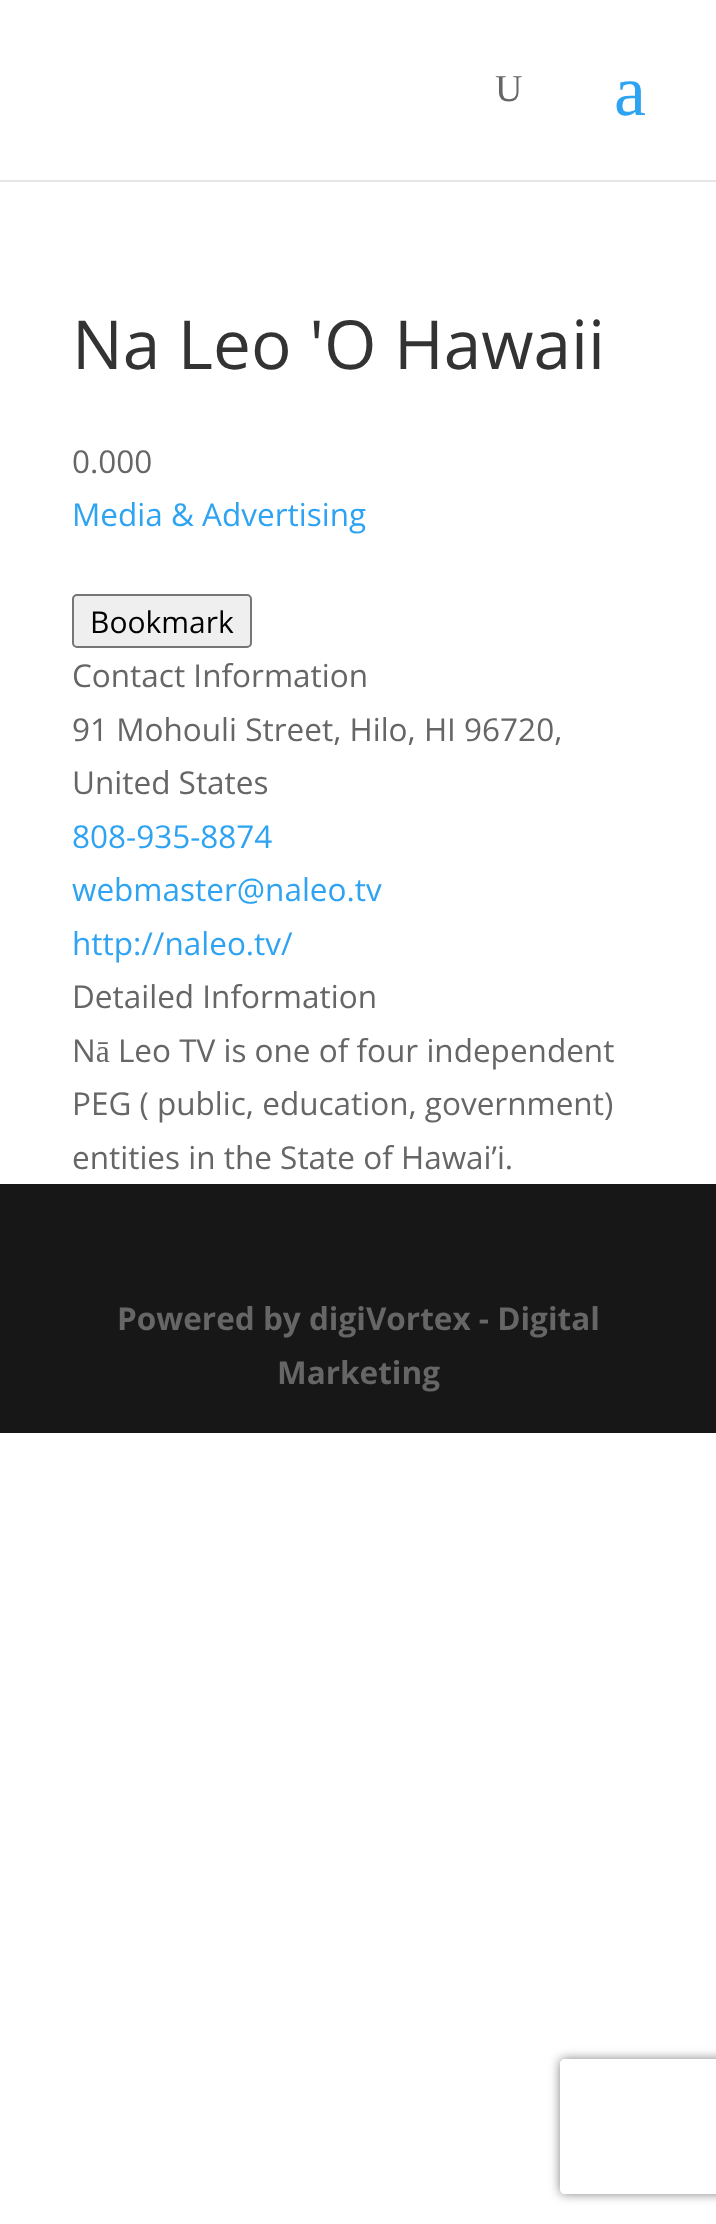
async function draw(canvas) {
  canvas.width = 716;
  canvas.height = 2224;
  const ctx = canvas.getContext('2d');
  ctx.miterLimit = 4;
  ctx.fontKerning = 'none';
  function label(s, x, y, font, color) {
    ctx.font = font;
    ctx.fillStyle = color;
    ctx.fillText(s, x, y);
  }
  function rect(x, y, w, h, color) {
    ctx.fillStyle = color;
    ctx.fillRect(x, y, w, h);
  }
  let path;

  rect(0, 0, 716, 2224, '#fff');
  ctx.fillStyle = '#e6e6e6';
  path = new Path2D('M0 180V182H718V2V180Z');
  ctx.fill(path);
  label('U', 495, 101, '38px Liberation Serif', '#666');
  label('a', 614, 115, '72px Liberation Serif', '#2ea3f2');
  label('Na Leo \'O Hawaii', 72, 369, '67.5px Open Sans', '#333');
  label('0.000', 72, 473, '31.5px Open Sans', '#666');
  label('Media & Advertising', 72, 526, '31.5px Open Sans', '#2ea3f2');
  ctx.fillStyle = '#efefef';
  ctx.beginPath();
  ctx.roundRect(73, 595, 178, 52, 4);
  ctx.fill();
  ctx.strokeStyle = '#767676';
  ctx.lineWidth = 2;
  ctx.stroke();
  label('Bookmark', 90, 633, '30px Open Sans', '#000');
  label('Contact Information', 72, 687, '31.5px Open Sans', '#666');
  label('91 Mohouli Street, Hilo, HI 96720,', 72, 741, '31.5px Open Sans', '#666');
  label('United States', 72, 794, '31.5px Open Sans', '#666');
  label('808-935-8874', 72, 848, '31.5px Open Sans', '#2ea3f2');
  label('webmaster@naleo.tv', 72, 901, '31.5px Open Sans', '#2ea3f2');
  label('http://naleo.tv/', 72, 955, '31.5px Open Sans', '#2ea3f2');
  label('Detailed Information', 72, 1008, '31.5px Open Sans', '#666');
  label('Nā Leo TV is one of four independent', 72, 1062, '31.5px Open Sans', '#666');
  label('PEG ( public, education, government)', 72, 1115, '31.5px Open Sans', '#666');
  label('entities in the State of Hawai’i.', 72, 1169, '31.5px Open Sans', '#666');
  rect(0, 1184, 716, 249, '#171717');
  label('Powered by digiVortex - Digital', 117, 1330, 'bold 31.5px Open Sans', '#666');
  label('Marketing', 277, 1384, 'bold 31.5px Open Sans', '#666');
  ctx.save();
  path = new Path2D('M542 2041H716V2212H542ZM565 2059H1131C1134 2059 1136 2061 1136 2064V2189C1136 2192 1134 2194 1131 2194H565C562 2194 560 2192 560 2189V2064C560 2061 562 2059 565 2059Z');
  ctx.clip(path, 'evenodd');
  ctx.fillStyle = '#808080';
  ctx.filter = 'blur(5.5px)';
  ctx.beginPath();
  ctx.roundRect(560, 2059, 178, 135, 5);
  ctx.fill();
  ctx.filter = 'none';
  ctx.restore();
}

draw(document.querySelector('canvas'));
